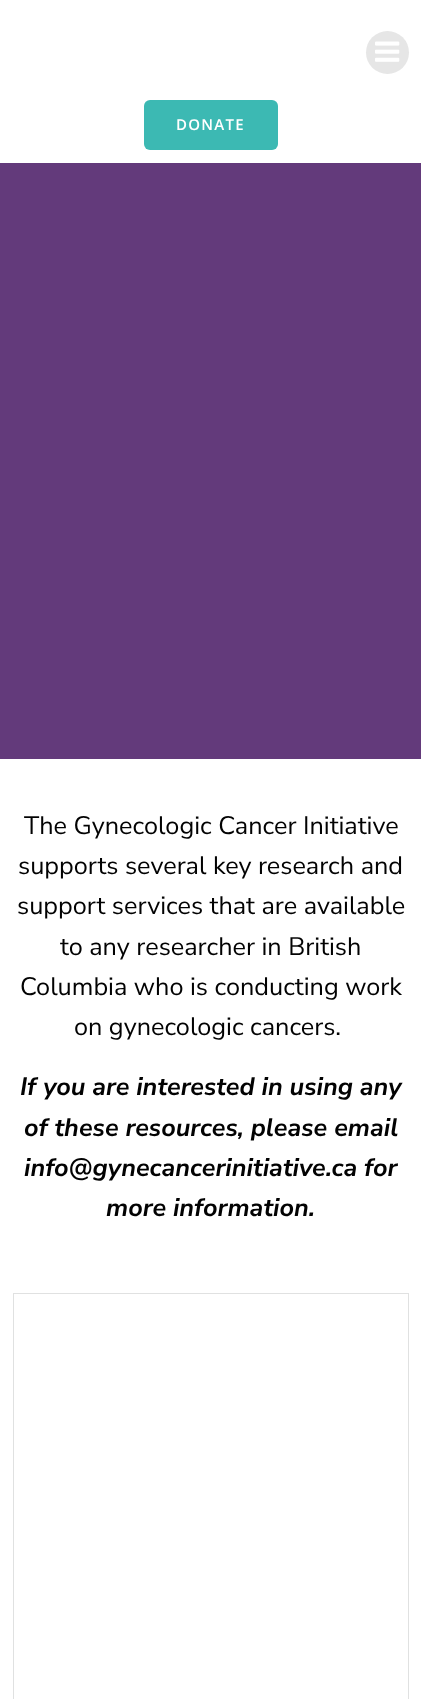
async function draw(canvas) {
  canvas.width = 421;
  canvas.height = 1699;
  const ctx = canvas.getContext('2d');
  ctx.miterLimit = 4;
  ctx.fontKerning = 'normal';
  function label(s, x, y, font, color) {
    ctx.font = font;
    ctx.fillStyle = color;
    ctx.fillText(s, x, y);
  }
  function rect(x, y, w, h, color) {
    ctx.fillStyle = color;
    ctx.fillRect(x, y, w, h);
  }
  function roundedRect(x, y, w, h, r, color) {
    ctx.fillStyle = color;
    ctx.beginPath();
    ctx.roundRect(x, y, w, h, r);
    ctx.fill();
  }
  async function image(src, x, y, w, h) {
    const img = new Image();
    img.src = src;
    await img.decode();
    ctx.drawImage(img, x, y, w, h);
  }

  rect(0, 0, 421, 1699, '#fff');
  ctx.fillStyle = '#e6e6e6';
  ctx.beginPath();
  ctx.arc(387.5, 52.5, 21.5, 0, 2 * Math.PI);
  ctx.fill();
  await image('assets/img1.png', 375, 41, 25, 21);
  roundedRect(144, 100, 134, 50, 6, '#3cb9b3');
  ctx.letterSpacing = '1.25px';
  label('DONATE', 176, 130, '600 15px Open Sans', '#fff');
  rect(0, 163, 421, 596, '#633a7b');
  ctx.letterSpacing = '0px';
  label('The Gynecologic Cancer Initiative', 24, 834, '25.25px Nunito Sans', '#020202');
  label('supports several key research and', 18, 874, '25.25px Nunito Sans', '#020202');
  label('support services that are available', 17, 914, '25.25px Nunito Sans', '#020202');
  label('to any researcher in British', 60, 955, '25.25px Nunito Sans', '#020202');
  label('Columbia who is conducting work', 20, 995, '25.25px Nunito Sans', '#020202');
  label('on gynecologic cancers.', 74, 1035, '25.25px Nunito Sans', '#020202');
  label('If you are interested in using any', 20, 1095, 'italic bold 25.25px Nunito Sans', '#020202');
  label('of these resources, please email', 24, 1136, 'italic bold 25.25px Nunito Sans', '#020202');
  label('info@gynecancerinitiative.ca for', 24, 1176, 'italic bold 25.25px Nunito Sans', '#020202');
  label('more information.', 106, 1216, 'italic bold 25.25px Nunito Sans', '#020202');
  ctx.strokeStyle = '#e0e1e1';
  ctx.strokeRect(13.5, 1293.5, 395, 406);
}

draw(document.querySelector('canvas'));
